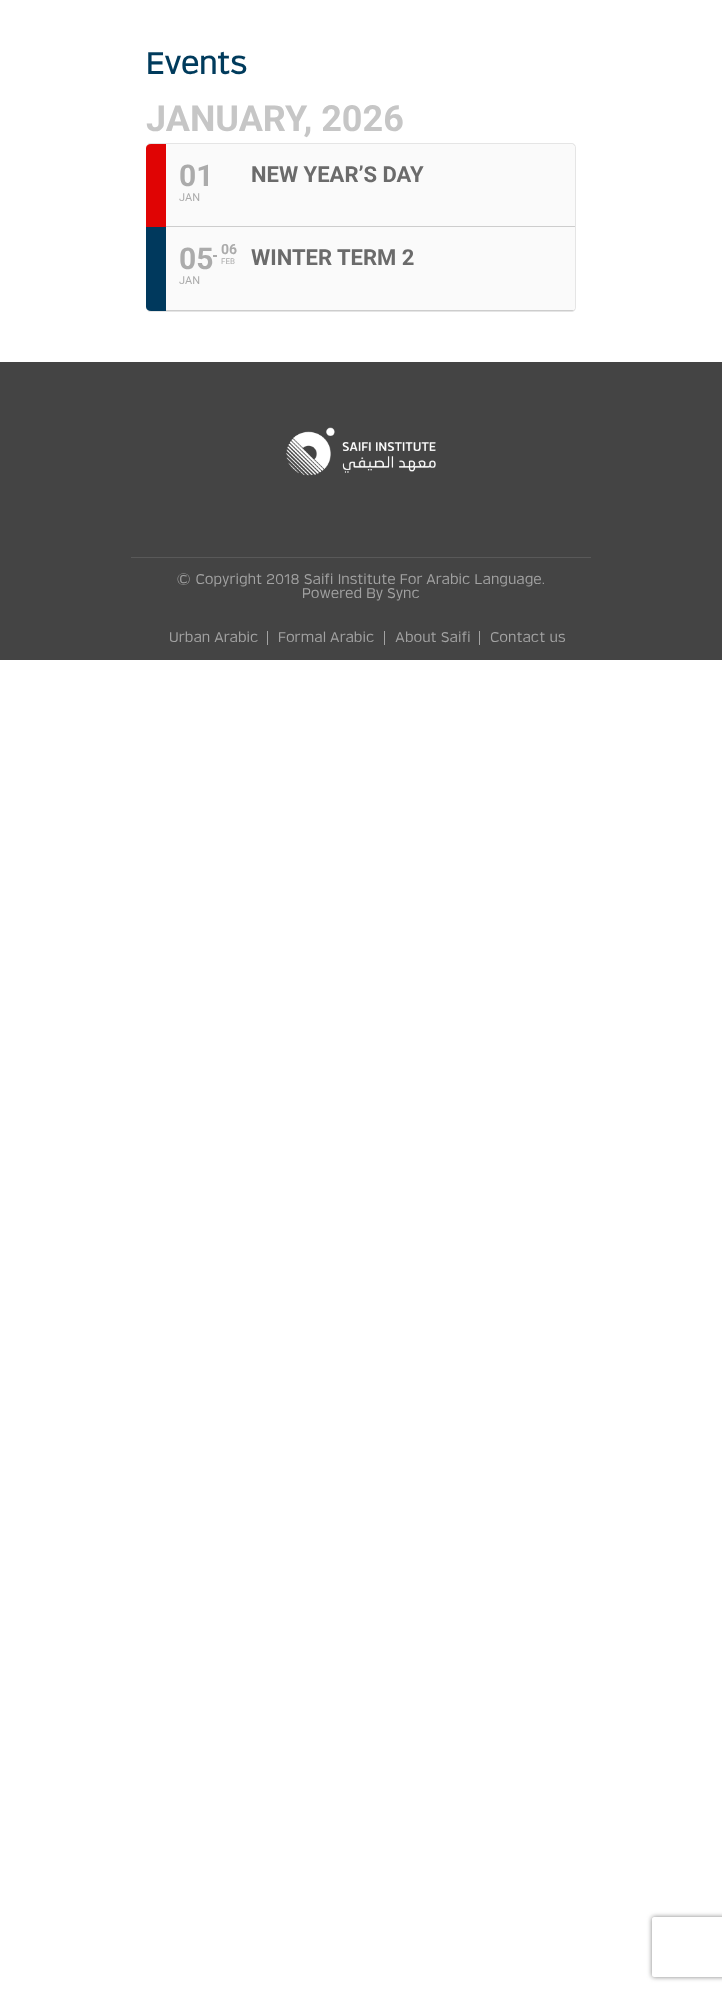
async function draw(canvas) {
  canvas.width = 722;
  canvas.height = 1991;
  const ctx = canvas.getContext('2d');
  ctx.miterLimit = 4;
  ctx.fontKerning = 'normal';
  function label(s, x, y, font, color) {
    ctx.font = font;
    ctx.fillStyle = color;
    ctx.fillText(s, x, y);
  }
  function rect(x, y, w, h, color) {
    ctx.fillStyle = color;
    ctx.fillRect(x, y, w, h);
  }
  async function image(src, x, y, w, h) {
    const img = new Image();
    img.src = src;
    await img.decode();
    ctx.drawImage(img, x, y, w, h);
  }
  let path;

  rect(0, 0, 722, 1991, '#fff');
  label('Events', 146, 74, 'bold 30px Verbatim', '#003b5c');
  label('JANUARY, 2026', 146, 131, 'bold 36px Roboto', '#c6c6c6');
  ctx.fillStyle = '#e5e5e5';
  path = new Path2D('M151 143H571C574 143 576 145 576 148V307C576 310 574 312 571 312H151C148 312 146 310 146 307V148C146 145 148 143 151 143ZM151 144H571C573 144 575 146 575 148V307C575 309 573 311 571 311H151C148 311 146 309 146 307V148C146 146 148 144 151 144Z');
  ctx.fill(path, 'evenodd');
  ctx.fillStyle = '#fafafa';
  path = new Path2D('M151 144C148 144 146 146 146 148V227H575V148C575 146 573 144 571 144Z');
  ctx.fill(path);
  ctx.fillStyle = '#e00404';
  path = new Path2D('M151 144C148 144 146 146 146 148V227H166V144Z');
  ctx.fill(path);
  label('01', 179, 186, 'bold 30px Roboto', '#ababab');
  label('JAN', 179, 201, '11px Roboto', '#ababab');
  label('NEW YEAR’S DAY', 251, 182, 'bold 22px Roboto', '#6b6b6b');
  rect(166, 226, 409, 1, '#cdcdcd');
  ctx.fillStyle = '#fafafa';
  path = new Path2D('M146 227V307C146 309 148 311 151 311H571C573 311 575 309 575 307V227Z');
  ctx.fill(path);
  ctx.fillStyle = '#00395d';
  path = new Path2D('M146 227V307C146 309 148 311 151 311H166V227Z');
  ctx.fill(path);
  label('05', 179, 269, 'bold 30px Roboto', '#ababab');
  label('JAN', 179, 284, '11px Roboto', '#ababab');
  label('06', 221, 254, 'bold 14px Roboto', '#ababab');
  rect(213, 255, 4, 2, '#ababab');
  label('FEB', 221, 264, '8px Roboto', '#ababab');
  label('WINTER TERM 2', 251, 265, 'bold 22px Roboto', '#6b6b6b');
  ctx.fillStyle = '#cdcdcd';
  path = new Path2D('M166 310V311H571C572 311 573 311 574 310Z');
  ctx.fill(path);
  rect(0, 362, 722, 298, '#444');
  await image('assets/img1.png', 286, 427, 150, 49);
  rect(131, 557, 460, 1, '#595959');
  label('© Copyright 2018 Saifi Institute For Arabic Language.', 176, 584, '14px Verbatim', '#a3a3a3');
  label('Powered By Sync', 302, 598, '14px Verbatim', '#a3a3a3');
  label('Urban Arabic', 169, 642, '14px Verbatim', '#a3a3a3');
  rect(267, 631, 1, 14, '#a3a3a3');
  label('Formal Arabic', 278, 642, '14px Verbatim', '#a3a3a3');
  rect(384, 631, 1, 14, '#a3a3a3');
  label('About Saifi', 395, 642, '14px Verbatim', '#a3a3a3');
  rect(479, 631, 1, 14, '#a3a3a3');
  label('Contact us', 490, 642, '14px Verbatim', '#a3a3a3');
  ctx.save();
  path = new Path2D('M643 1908H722V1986H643ZM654 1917H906C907 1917 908 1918 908 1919V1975C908 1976 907 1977 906 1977H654C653 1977 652 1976 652 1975V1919C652 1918 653 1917 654 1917Z');
  ctx.clip(path, 'evenodd');
  ctx.fillStyle = '#808080';
  ctx.filter = 'blur(2.5px)';
  ctx.beginPath();
  ctx.roundRect(652, 1917, 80, 60, 2);
  ctx.fill();
  ctx.filter = 'none';
  ctx.restore();
}

draw(document.querySelector('canvas'));
